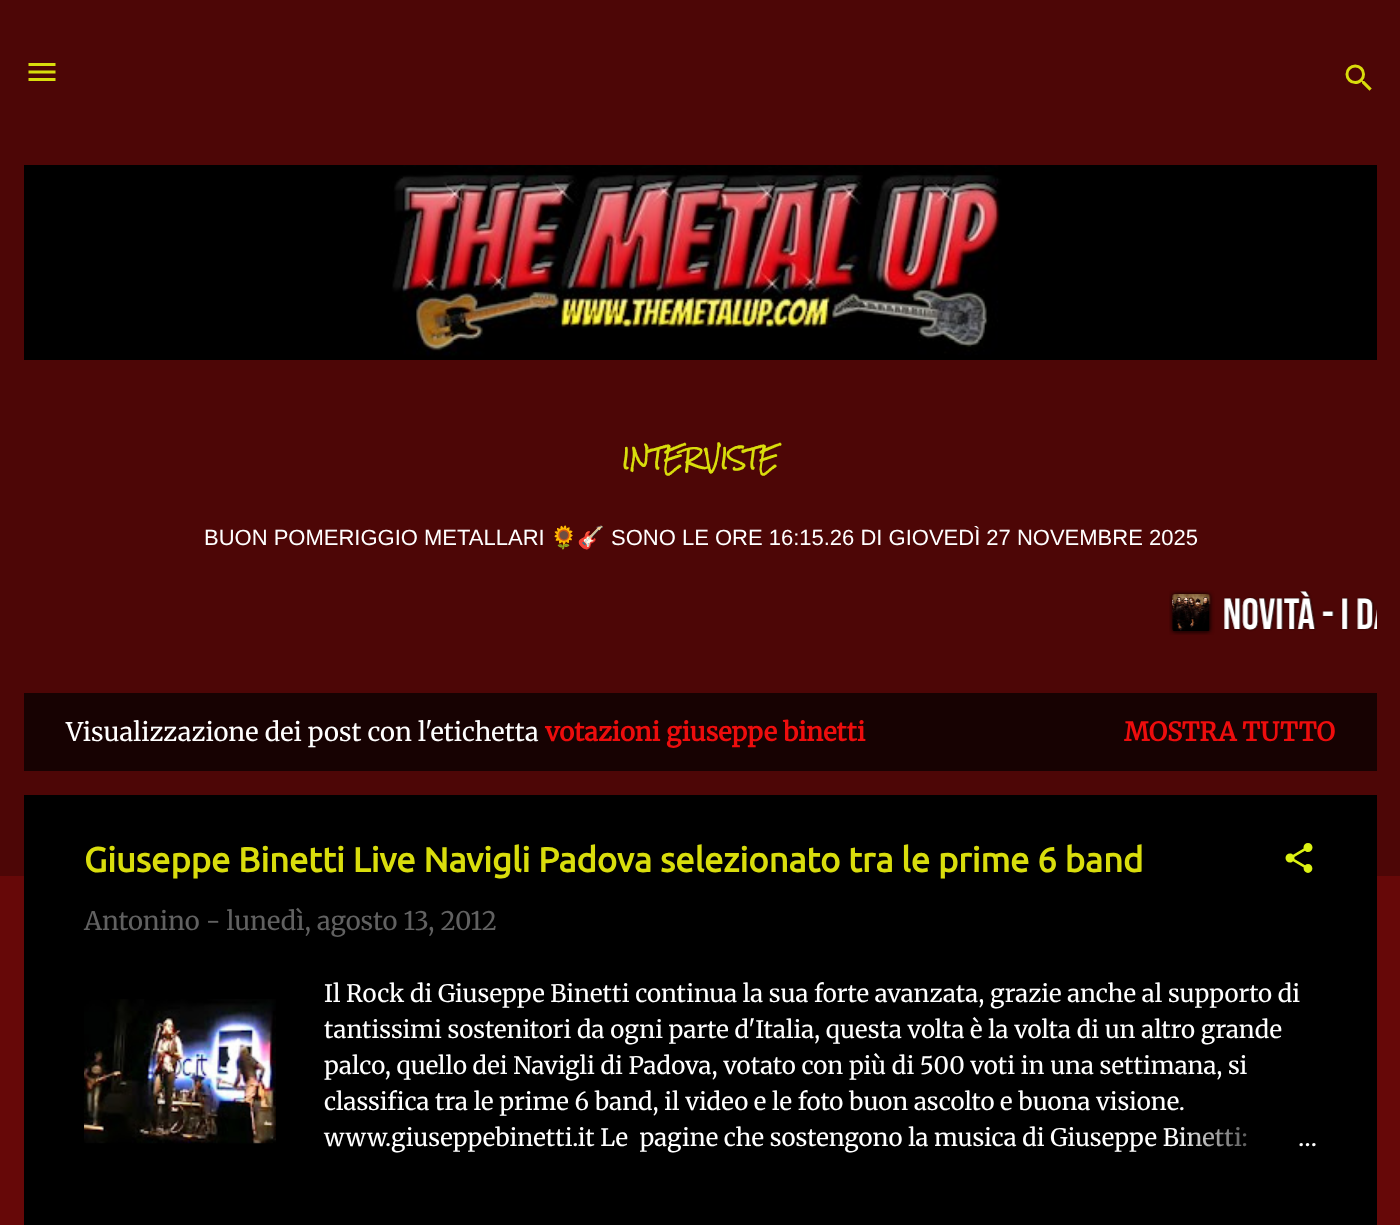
async function draw(canvas) {
  canvas.width = 1400;
  canvas.height = 1225;
  const ctx = canvas.getContext('2d');
  ctx.miterLimit = 4;
  ctx.fontKerning = 'normal';
  function label(s, x, y, font, color) {
    ctx.font = font;
    ctx.fillStyle = color;
    ctx.fillText(s, x, y);
  }
  function rect(x, y, w, h, color) {
    ctx.fillStyle = color;
    ctx.fillRect(x, y, w, h);
  }
  async function image(src, x, y, w, h) {
    const img = new Image();
    img.src = src;
    await img.decode();
    ctx.drawImage(img, x, y, w, h);
  }
  let gradient;

  rect(0, 0, 1400, 1225, '#660808');
  rect(0, 0, 1400, 876, '#4d0606');
  await image('assets/img1.png', 28, 63, 28, 18);
  await image('assets/img2.png', 1345, 64, 27, 27);
  await image('assets/img3.png', 24, 165, 1353, 195);
  label('INTERVISTE', 622, 467, 'bold 21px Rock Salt', '#d9dd0c');
  label('BUON POMERIGGIO METALLARI', 204, 545, '22px Liberation Sans', '#fff');
  label('🌻🎸', 550, 545, '22px Noto Color Emoji', '#fff');
  label('SONO LE ORE 16:15.26 DI GIOVEDÌ 27 NOVEMBRE 2025', 611, 545, '22px Liberation Sans', '#fff');
  await image('assets/img4.png', 1169, 590, 208, 45);
  rect(24, 693, 1353, 78, '#170202');
  label('Visualizzazione dei post con l\'etichetta', 66, 741, '300 25.5px Merriweather', '#fff');
  label('votazioni giuseppe binetti', 545, 741, 'bold 25.5px Merriweather', '#ed0d0d');
  label('MOSTRA TUTTO', 1124, 741, 'bold 25.5px Merriweather', '#ed0d0d');
  rect(24, 795, 1353, 430, '#000');
  label('Giuseppe Binetti Live Navigli Padova selezionato tra le prime 6 band', 84, 872, 'bold 34.5px Ubuntu', '#d9dd0c');
  await image('assets/img5.png', 1285, 843, 28, 30);
  label('Antonino - lunedì, agosto 13, 2012', 84, 930, '300 25.5px Merriweather', '#616161');
  await image('assets/img6.png', 84, 999, 192, 145);
  label('Il Rock di Giuseppe Binetti continua la sua forte avanzata, grazie anche al supporto di', 324, 1002, '300 24px Merriweather', '#fff');
  label('tantissimi sostenitori da ogni parte d\'Italia, questa volta è la volta di un altro grande', 324, 1038, '300 24px Merriweather', '#fff');
  label('palco, quello dei Navigli di Padova, votato con più di 500 voti in una settimana, si', 324, 1074, '300 24px Merriweather', '#fff');
  label('classifica tra le prime 6 band, il video e le foto buon ascolto e buona visione.', 324, 1110, '300 24px Merriweather', '#fff');
  label('www.giuseppebinetti.it Le  pagine che sostengono la musica di Giuseppe Binetti:', 324, 1146, '300 24px Merriweather', '#fff');
  gradient = ctx.createLinearGradient(1317, 1137, 1173, 1137);
  gradient.addColorStop(0, '#000');
  gradient.addColorStop(0.2, '#000');
  gradient.addColorStop(1, '#00000000');
  ctx.fillStyle = gradient;
  ctx.fillRect(1175, 1127, 72, 20);
  label('…', 1298, 1146, '300 24px Merriweather', '#fff');
}

draw(document.querySelector('canvas'));
